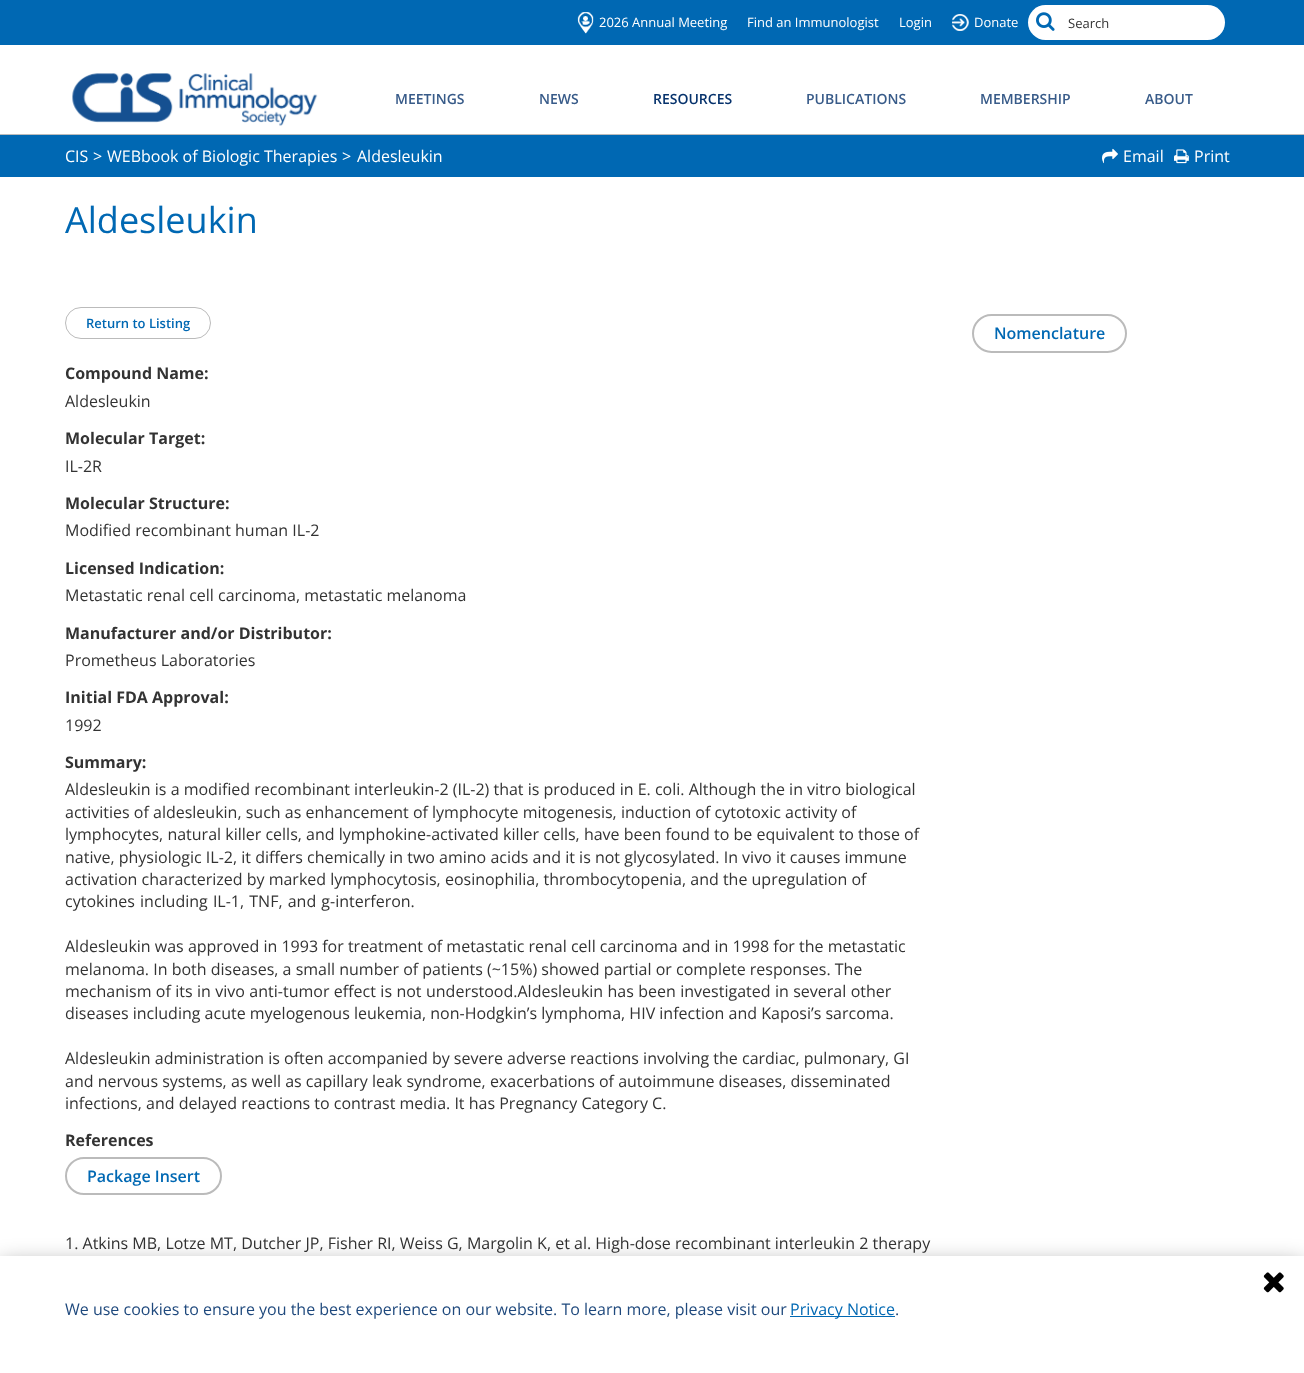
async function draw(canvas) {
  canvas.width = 1304;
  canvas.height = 1373;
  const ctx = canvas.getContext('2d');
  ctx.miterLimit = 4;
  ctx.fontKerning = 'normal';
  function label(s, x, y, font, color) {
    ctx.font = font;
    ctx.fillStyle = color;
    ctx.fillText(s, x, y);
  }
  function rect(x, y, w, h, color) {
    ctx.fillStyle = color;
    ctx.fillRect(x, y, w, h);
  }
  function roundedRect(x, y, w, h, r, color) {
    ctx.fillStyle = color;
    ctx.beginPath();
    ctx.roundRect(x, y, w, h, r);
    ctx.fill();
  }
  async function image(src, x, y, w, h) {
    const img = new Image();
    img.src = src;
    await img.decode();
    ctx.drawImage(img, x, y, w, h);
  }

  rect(0, 0, 1304, 1373, '#fff');
  rect(0, 134, 1304, 1, '#bbb');
  rect(0, 0, 1304, 45, '#0068b3');
  await image('assets/img1.png', 577, 12, 17, 22);
  label('2026 Annual Meeting', 599, 27, '13px Open Sans', '#fff');
  label('Find an Immunologist', 747, 27, '13px Open Sans', '#fff');
  label('Login', 899, 27, '13px Open Sans', '#fff');
  await image('assets/img2.png', 952, 14, 17, 17);
  label('Donate', 974, 27, '13px Open Sans', '#fff');
  roundedRect(1028, 5, 197, 35, 17.5, '#fff');
  await image('assets/img3.png', 1036, 12, 19, 19);
  label('Search', 1068, 28, '13px Open Sans', '#333');
  await image('assets/img4.png', 72, 73, 246, 53);
  label('MEETINGS', 395, 104, '600 14px Open Sans', '#385b89');
  label('NEWS', 539, 104, '600 14px Open Sans', '#385b89');
  label('RESOURCES', 653, 104, '600 14px Open Sans', '#06326c');
  label('PUBLICATIONS', 806, 104, '600 14px Open Sans', '#385b89');
  label('MEMBERSHIP', 980, 104, '600 14px Open Sans', '#385b89');
  label('ABOUT', 1145, 104, '600 14px Open Sans', '#385b89');
  rect(0, 135, 1304, 42, '#0068b3');
  label('CIS', 65, 162, '16px Open Sans', '#fff');
  label('>', 93, 162, '16px Open Sans', '#fff');
  label('WEBbook of Biologic Therapies', 107, 162, '16px Open Sans', '#fff');
  label('>', 342, 162, '16px Open Sans', '#fff');
  label('Aldesleukin', 357, 162, '16px Open Sans', '#fff');
  await image('assets/img5.png', 1102, 148, 16, 16);
  label('Email', 1123, 162, '16px Open Sans', '#fff');
  await image('assets/img6.png', 1174, 149, 15, 15);
  label('Print', 1194, 162, '16px Open Sans', '#fff');
  label('Aldesleukin', 65, 233, '36px Open Sans', '#0068b3');
  ctx.beginPath();
  ctx.roundRect(65.5, 307.5, 145, 31, 15.5);
  ctx.strokeStyle = '#bbb';
  ctx.stroke();
  label('Return to Listing', 86, 328, '600 13px Open Sans', '#0068b3');
  label('Compound Name:', 65, 379, 'bold 16px Open Sans', '#333');
  label('Aldesleukin', 65, 407, '16px Open Sans', '#333');
  label('Molecular Target:', 65, 444, 'bold 16px Open Sans', '#333');
  label('IL-2R', 65, 472, '16px Open Sans', '#333');
  label('Molecular Structure:', 65, 509, 'bold 16px Open Sans', '#333');
  label('Modified recombinant human IL-2', 65, 536, '16px Open Sans', '#333');
  label('Licensed Indication:', 65, 574, 'bold 16px Open Sans', '#333');
  label('Metastatic renal cell carcinoma, metastatic melanoma', 65, 601, '16px Open Sans', '#333');
  label('Manufacturer and/or Distributor:', 65, 639, 'bold 16px Open Sans', '#333');
  label('Prometheus Laboratories', 65, 666, '16px Open Sans', '#333');
  label('Initial FDA Approval:', 65, 703, 'bold 16px Open Sans', '#333');
  label('1992', 65, 731, '16px Open Sans', '#333');
  label('Summary:', 65, 768, 'bold 16px Open Sans', '#333');
  label('Aldesleukin is a modified recombinant interleukin-2 (IL-2) that is produced in E. coli. Although the in vitro biological', 65, 795, '16px Open Sans', '#333');
  label('activities of aldesleukin, such as enhancement of lymphocyte mitogenesis, induction of cytotoxic activity of', 65, 818, '16px Open Sans', '#333');
  label('lymphocytes, natural killer cells, and lymphokine-activated killer cells, have been found to be equivalent to those of', 65, 840, '16px Open Sans', '#333');
  label('native, physiologic IL-2, it differs chemically in two amino acids and it is not glycosylated. In vivo it causes immune', 65, 863, '16px Open Sans', '#333');
  label('activation characterized by marked lymphocytosis, eosinophilia, thrombocytopenia, and the upregulation of', 65, 885, '16px Open Sans', '#333');
  ctx.wordSpacing = '1px';
  label('cytokines including IL-1, TNF, and g-interferon.', 65, 907, '16px Open Sans', '#333');
  ctx.wordSpacing = '0px';
  label('Aldesleukin was approved in 1993 for treatment of metastatic renal cell carcinoma and in 1998 for the metastatic', 65, 952, '16px Open Sans', '#333');
  label('melanoma. In both diseases, a small number of patients (~15%) showed partial or complete responses. The', 65, 975, '16px Open Sans', '#333');
  ctx.wordSpacing = '0.25px';
  label('mechanism of its in vivo anti-tumor effect is not understood.Aldesleukin has been investigated in several other', 65, 997, '16px Open Sans', '#333');
  ctx.wordSpacing = '0px';
  label('diseases including acute myelogenous leukemia, non-Hodgkin’s lymphoma, HIV infection and Kaposi’s sarcoma.', 65, 1019, '16px Open Sans', '#333');
  label('Aldesleukin administration is often accompanied by severe adverse reactions involving the cardiac, pulmonary, GI', 65, 1064, '16px Open Sans', '#333');
  label('and nervous systems, as well as capillary leak syndrome, exacerbations of autoimmune diseases, disseminated', 65, 1087, '16px Open Sans', '#333');
  label('infections, and delayed reactions to contrast media. It has Pregnancy Category C.', 65, 1109, '16px Open Sans', '#333');
  label('References', 65, 1146, 'bold 16px Open Sans', '#333');
  ctx.beginPath();
  ctx.roundRect(66, 1158, 155, 36, 18);
  ctx.lineWidth = 2;
  ctx.stroke();
  label('Package Insert', 87, 1182, '600 16px Open Sans', '#0068b3');
  label('1. Atkins MB, Lotze MT, Dutcher JP, Fisher RI, Weiss G, Margolin K, et al. High-dose recombinant interleukin 2 therapy', 65, 1249, '16px Open Sans', '#333');
  ctx.beginPath();
  ctx.roundRect(973, 315, 153, 37, 18.5);
  ctx.stroke();
  label('Nomenclature', 994, 339, '600 16px Open Sans', '#0068b3');
  ctx.fillStyle = '#00000080';
  ctx.filter = 'blur(12.5px)';
  ctx.beginPath();
  ctx.rect(0, 1266, 1304, 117);
  ctx.fill();
  ctx.filter = 'none';
  rect(0, 1256, 1304, 117, '#fff');
  await image('assets/img7.png', 1263, 1272, 21, 21);
  label('We use cookies to ensure you the best experience on our website. To learn more, please visit our', 65, 1315, '16px Open Sans', '#1f497d');
  rect(790, 1316, 105, 1, '#0068b3');
  label('Privacy Notice', 790, 1315, '16px Open Sans', '#0068b3');
  label('.', 895, 1315, '16px Open Sans', '#1f497d');
}

draw(document.querySelector('canvas'));
